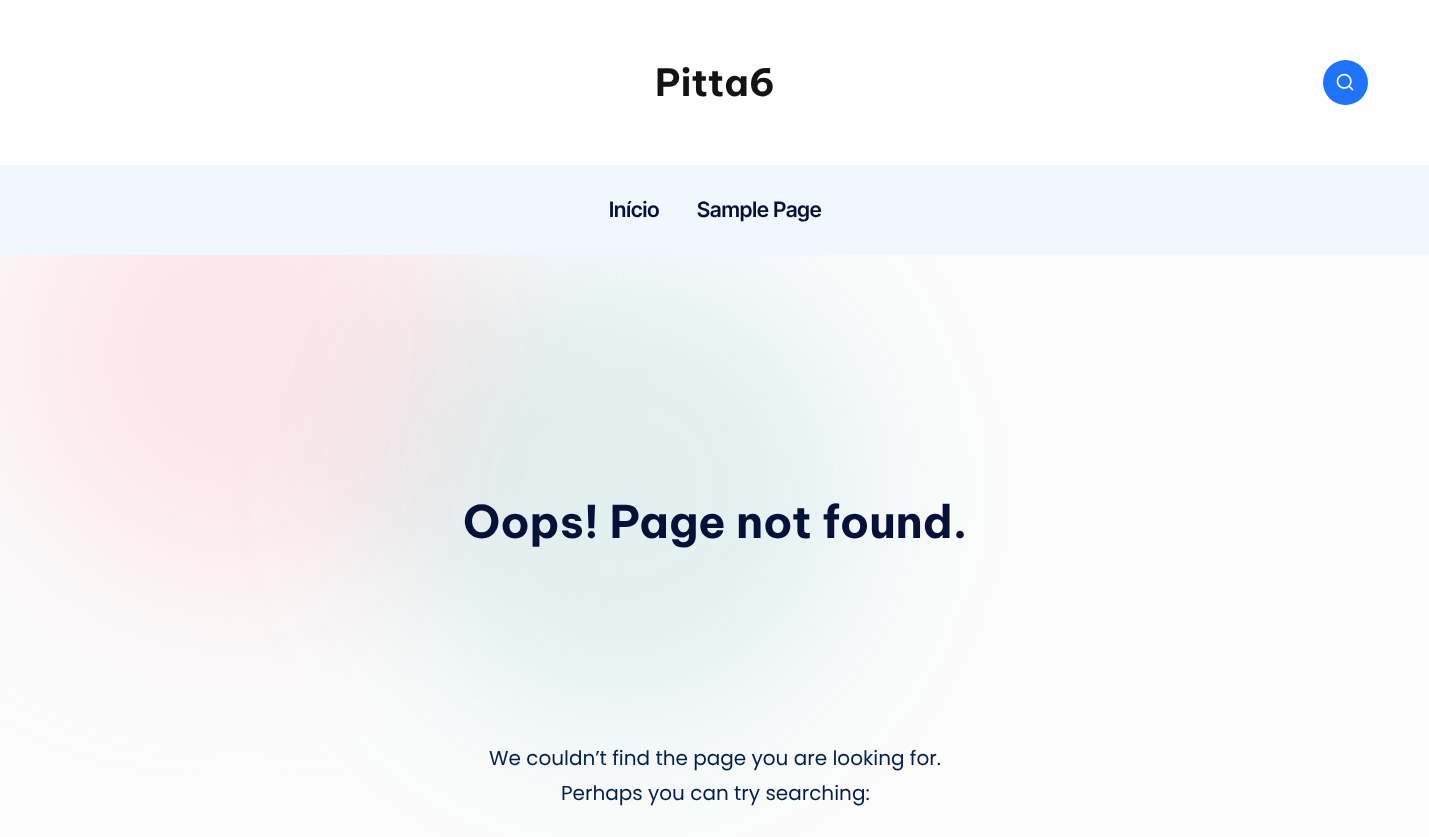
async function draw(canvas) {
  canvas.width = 1429;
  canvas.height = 837;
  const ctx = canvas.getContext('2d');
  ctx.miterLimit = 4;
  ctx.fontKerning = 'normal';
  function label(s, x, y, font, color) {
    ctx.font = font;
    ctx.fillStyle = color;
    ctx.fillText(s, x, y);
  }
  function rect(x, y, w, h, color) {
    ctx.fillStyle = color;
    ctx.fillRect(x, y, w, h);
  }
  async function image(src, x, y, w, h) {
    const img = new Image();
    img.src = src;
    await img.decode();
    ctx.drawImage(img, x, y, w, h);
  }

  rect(0, 0, 1429, 837, '#fcfcfc');
  ctx.fillStyle = '#fce7ea';
  ctx.filter = 'blur(80px)';
  ctx.beginPath();
  ctx.roundRect(0, 113, 480, 480, 240);
  ctx.fill();
  ctx.filter = 'none';
  ctx.fillStyle = '#04868b1a';
  ctx.filter = 'blur(80px)';
  ctx.beginPath();
  ctx.roundRect(380, 250, 480, 480, 240);
  ctx.fill();
  ctx.filter = 'none';
  rect(0, 0, 1429, 165, '#fff');
  label('Pitta6', 655, 96, 'bold 37.5px Be Vietnam Pro', '#131315');
  ctx.fillStyle = '#1e73ff';
  ctx.beginPath();
  ctx.arc(1345.5, 82.5, 22.5, 0, 2 * Math.PI);
  ctx.fill();
  await image('assets/img1.png', 1336, 73, 18, 18);
  rect(0, 165, 1429, 90, '#f1f6ff');
  label('Início', 609, 217, '600 21.25px Inter Tight', '#041139');
  label('Sample Page', 697, 217, '600 21.25px Inter Tight', '#041139');
  label('Oops! Page not found.', 463, 538, 'bold 45px Be Vietnam Pro', '#041139');
  label('We couldn’t find the page you are looking for.', 489, 765, '20px Poppins', '#002050');
  label('Perhaps you can try searching:', 561, 800, '20px Poppins', '#002050');
}

draw(document.querySelector('canvas'));
